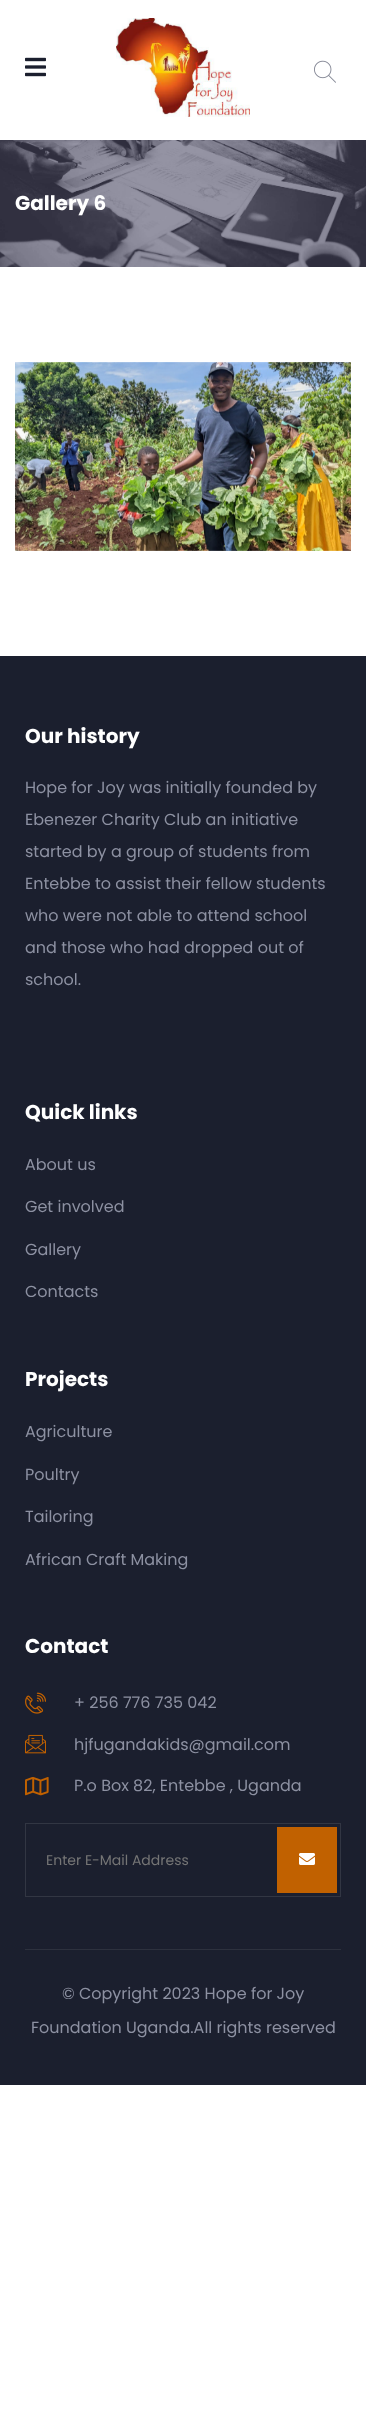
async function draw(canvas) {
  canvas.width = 366;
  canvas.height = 2428;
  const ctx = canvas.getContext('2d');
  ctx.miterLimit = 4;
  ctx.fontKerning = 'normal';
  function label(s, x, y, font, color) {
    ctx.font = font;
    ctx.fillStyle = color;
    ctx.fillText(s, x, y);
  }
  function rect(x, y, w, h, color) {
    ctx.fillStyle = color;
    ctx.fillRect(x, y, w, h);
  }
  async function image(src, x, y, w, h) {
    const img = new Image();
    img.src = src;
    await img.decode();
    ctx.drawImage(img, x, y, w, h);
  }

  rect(0, 0, 366, 2428, '#fff');
  await image('assets/img1.png', 25, 57, 21, 20);
  await image('assets/img2.png', 116, 18, 134, 99);
  await image('assets/img3.png', 314, 60, 22, 23);
  await image('assets/img4.png', 0, 140, 366, 127);
  label('Gallery 6', 15, 210, 'bold 20px Poppins', '#fff');
  await image('assets/img5.png', 15, 362, 336, 189);
  rect(0, 656, 366, 1429, '#1b1f2e');
  label('Our history', 25, 743, 'bold 20px Poppins', '#fff');
  label('Hope for Joy was initially founded by', 25, 793, '16px Poppins', '#8d91a2');
  label('Ebenezer Charity Club an initiative', 25, 825, '16px Poppins', '#8d91a2');
  label('started by a group of students from', 25, 857, '16px Poppins', '#8d91a2');
  label('Entebbe to assist their fellow students', 25, 889, '16px Poppins', '#8d91a2');
  label('who were not able to attend school', 25, 921, '16px Poppins', '#8d91a2');
  label('and those who had dropped out of', 25, 953, '16px Poppins', '#8d91a2');
  label('school.', 25, 985, '16px Poppins', '#8d91a2');
  label('Quick links', 25, 1119, 'bold 20px Poppins', '#fff');
  label('About us', 25, 1170, '16px Poppins', '#8d91a2');
  label('Get involved', 25, 1212, '16px Poppins', '#8d91a2');
  label('Gallery', 25, 1255, '16px Poppins', '#8d91a2');
  label('Contacts', 25, 1297, '16px Poppins', '#8d91a2');
  label('Projects', 25, 1386, 'bold 20px Poppins', '#fff');
  label('Agriculture', 25, 1437, '16px Poppins', '#8d91a2');
  label('Poultry', 25, 1480, '16px Poppins', '#8d91a2');
  label('Tailoring', 25, 1522, '16px Poppins', '#8d91a2');
  label('African Craft Making', 25, 1565, '16px Poppins', '#8d91a2');
  label('Contact', 25, 1653, 'bold 20px Poppins', '#fff');
  await image('assets/img6.png', 25, 1692, 21, 22);
  label('+ 256 776 735 042', 74, 1708, '16px Poppins', '#8d91a2');
  await image('assets/img7.png', 25, 1734, 21, 20);
  label('hjfugandakids@gmail.com', 74, 1750, '16px Poppins', '#8d91a2');
  await image('assets/img8.png', 25, 1777, 24, 19);
  label('P.o Box 82, Entebbe , Uganda', 74, 1791, '16px Poppins', '#8d91a2');
  ctx.strokeStyle = '#323643';
  ctx.strokeRect(25.5, 1823.5, 315, 73);
  label('Enter E-Mail Address', 46, 1865, '14px Poppins', '#757575');
  rect(277, 1827, 60, 66, '#c16100');
  await image('assets/img9.png', 299, 1853, 16, 12);
  rect(25, 1949, 316, 1, '#2d313e');
  label('© Copyright 2023 Hope for Joy', 62, 1999, '16px Poppins', '#8d91a2');
  label('Foundation Uganda.All rights reserved', 31, 2033, '16px Poppins', '#8d91a2');
}

draw(document.querySelector('canvas'));
